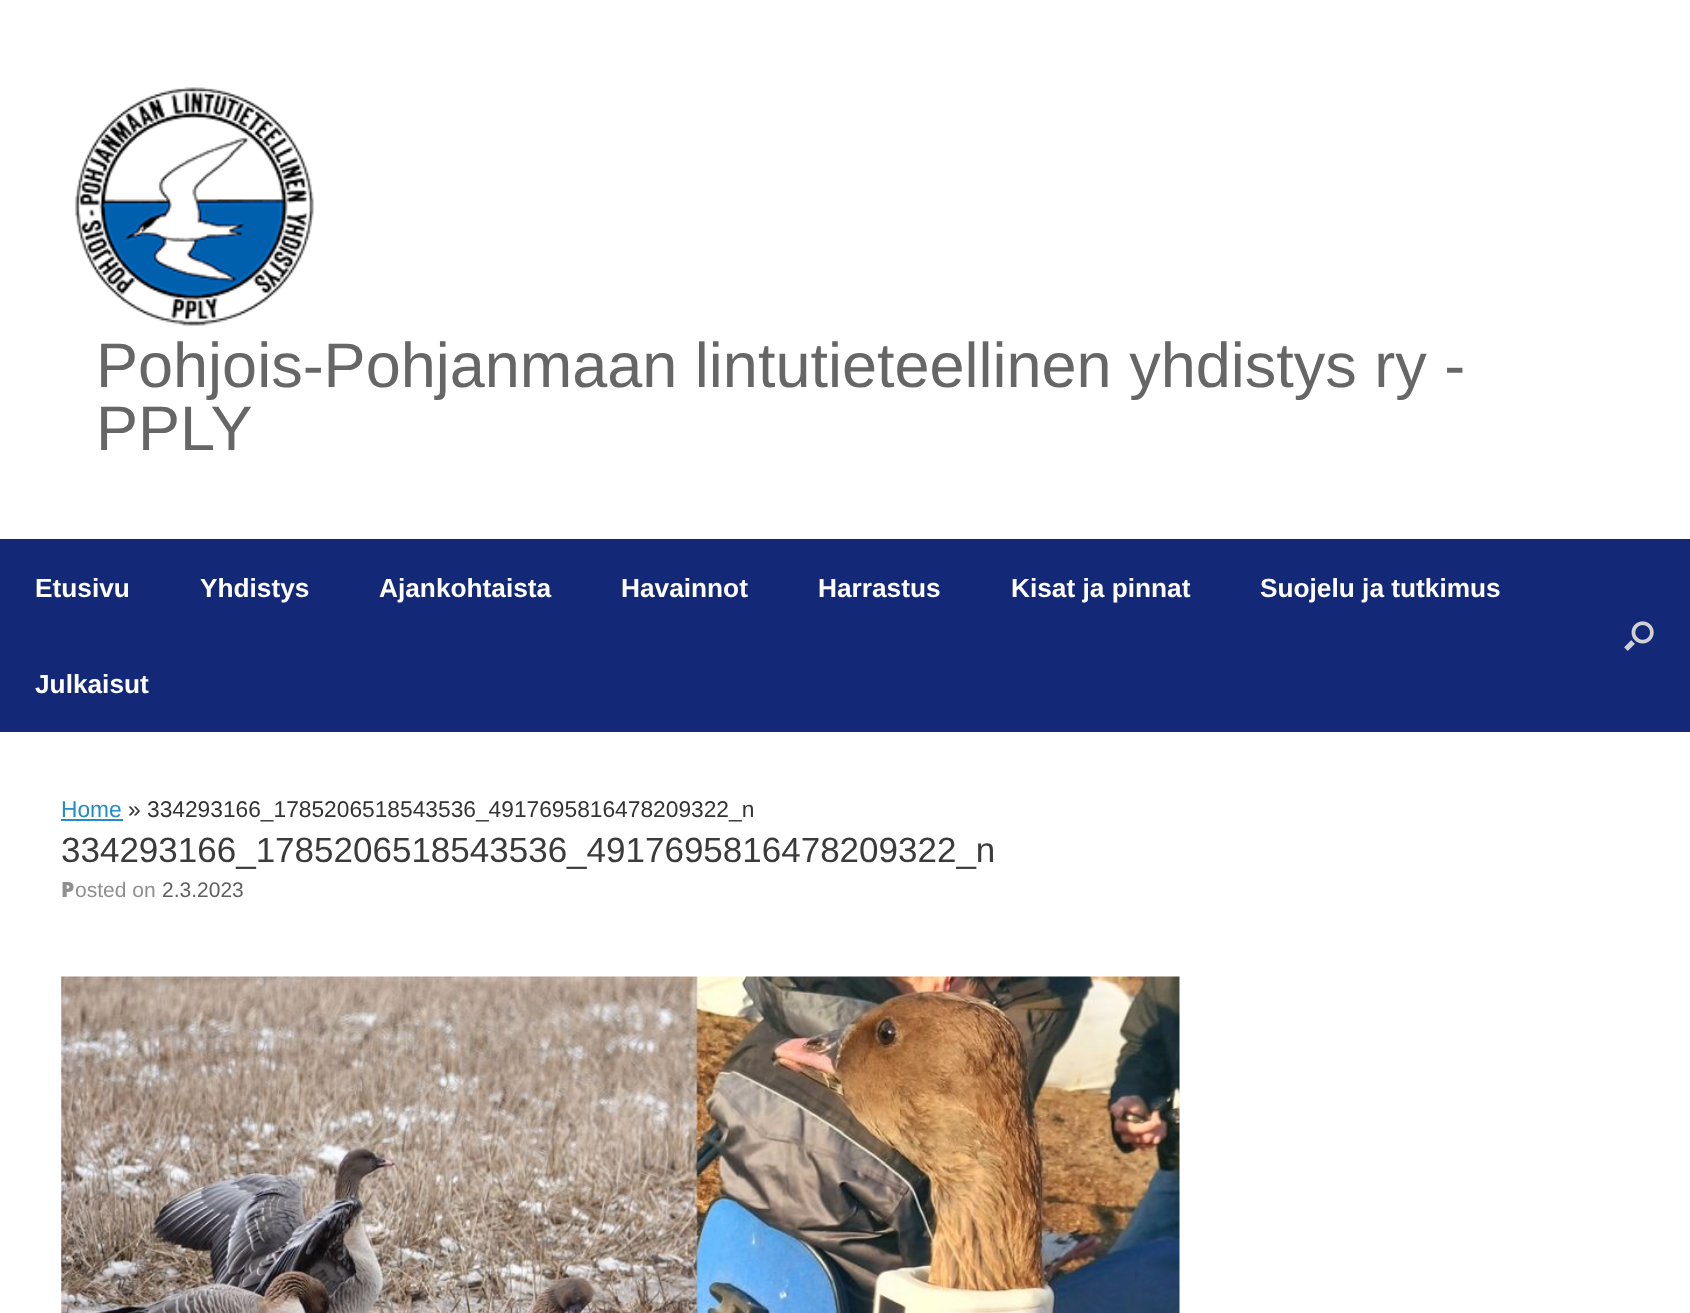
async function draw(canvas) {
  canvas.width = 1690;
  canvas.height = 1313;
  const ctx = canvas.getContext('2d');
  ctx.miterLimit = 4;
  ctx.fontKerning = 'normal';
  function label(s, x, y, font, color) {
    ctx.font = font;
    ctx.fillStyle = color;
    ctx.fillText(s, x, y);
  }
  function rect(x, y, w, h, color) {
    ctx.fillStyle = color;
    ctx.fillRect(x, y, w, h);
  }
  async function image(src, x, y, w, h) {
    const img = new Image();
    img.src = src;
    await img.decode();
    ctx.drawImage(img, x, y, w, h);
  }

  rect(0, 0, 1690, 1313, '#fff');
  await image('assets/img1.png', 74, 87, 240, 239);
  label('Pohjois-Pohjanmaan lintutieteellinen yhdistys ry -', 96, 387, '63px Liberation Sans', '#666');
  label('PPLY', 96, 450, '63px Liberation Sans', '#666');
  rect(0, 539, 1690, 193, '#132877');
  label('Etusivu', 35, 597, 'bold 26.25px Liberation Sans', '#fff');
  label('Yhdistys', 200, 597, 'bold 26.25px Liberation Sans', '#fff');
  label('Ajankohtaista', 379, 597, 'bold 26.25px Liberation Sans', '#fff');
  label('Havainnot', 621, 597, 'bold 26.25px Liberation Sans', '#fff');
  label('Harrastus', 818, 597, 'bold 26.25px Liberation Sans', '#fff');
  label('Kisat ja pinnat', 1011, 597, 'bold 26.25px Liberation Sans', '#fff');
  label('Suojelu ja tutkimus', 1260, 597, 'bold 26.25px Liberation Sans', '#fff');
  label('Julkaisut', 35, 693, 'bold 26.25px Liberation Sans', '#fff');
  await image('assets/img2.png', 1624, 621, 30, 30);
  label('Home', 61, 817, '22.75px Liberation Sans', '#248cc8');
  rect(61, 819, 62, 2, '#248cc8');
  label('» 334293166_1785206518543536_4917695816478209322_n', 128, 817, '22.75px Liberation Sans', '#333');
  label('334293166_1785206518543536_4917695816478209322_n', 61, 862, '35px Liberation Sans', '#3b3b3b');
  label('P', 61, 897, '900 21px Noto Sans', '#8f8f8f');
  label('osted on', 75, 897, '21px Liberation Sans', '#8f8f8f');
  label('2.3.2023', 162, 897, '21px Liberation Sans', '#5e5e5e');
  await image('assets/img3.png', 61, 976, 1119, 337);
}

draw(document.querySelector('canvas'));
